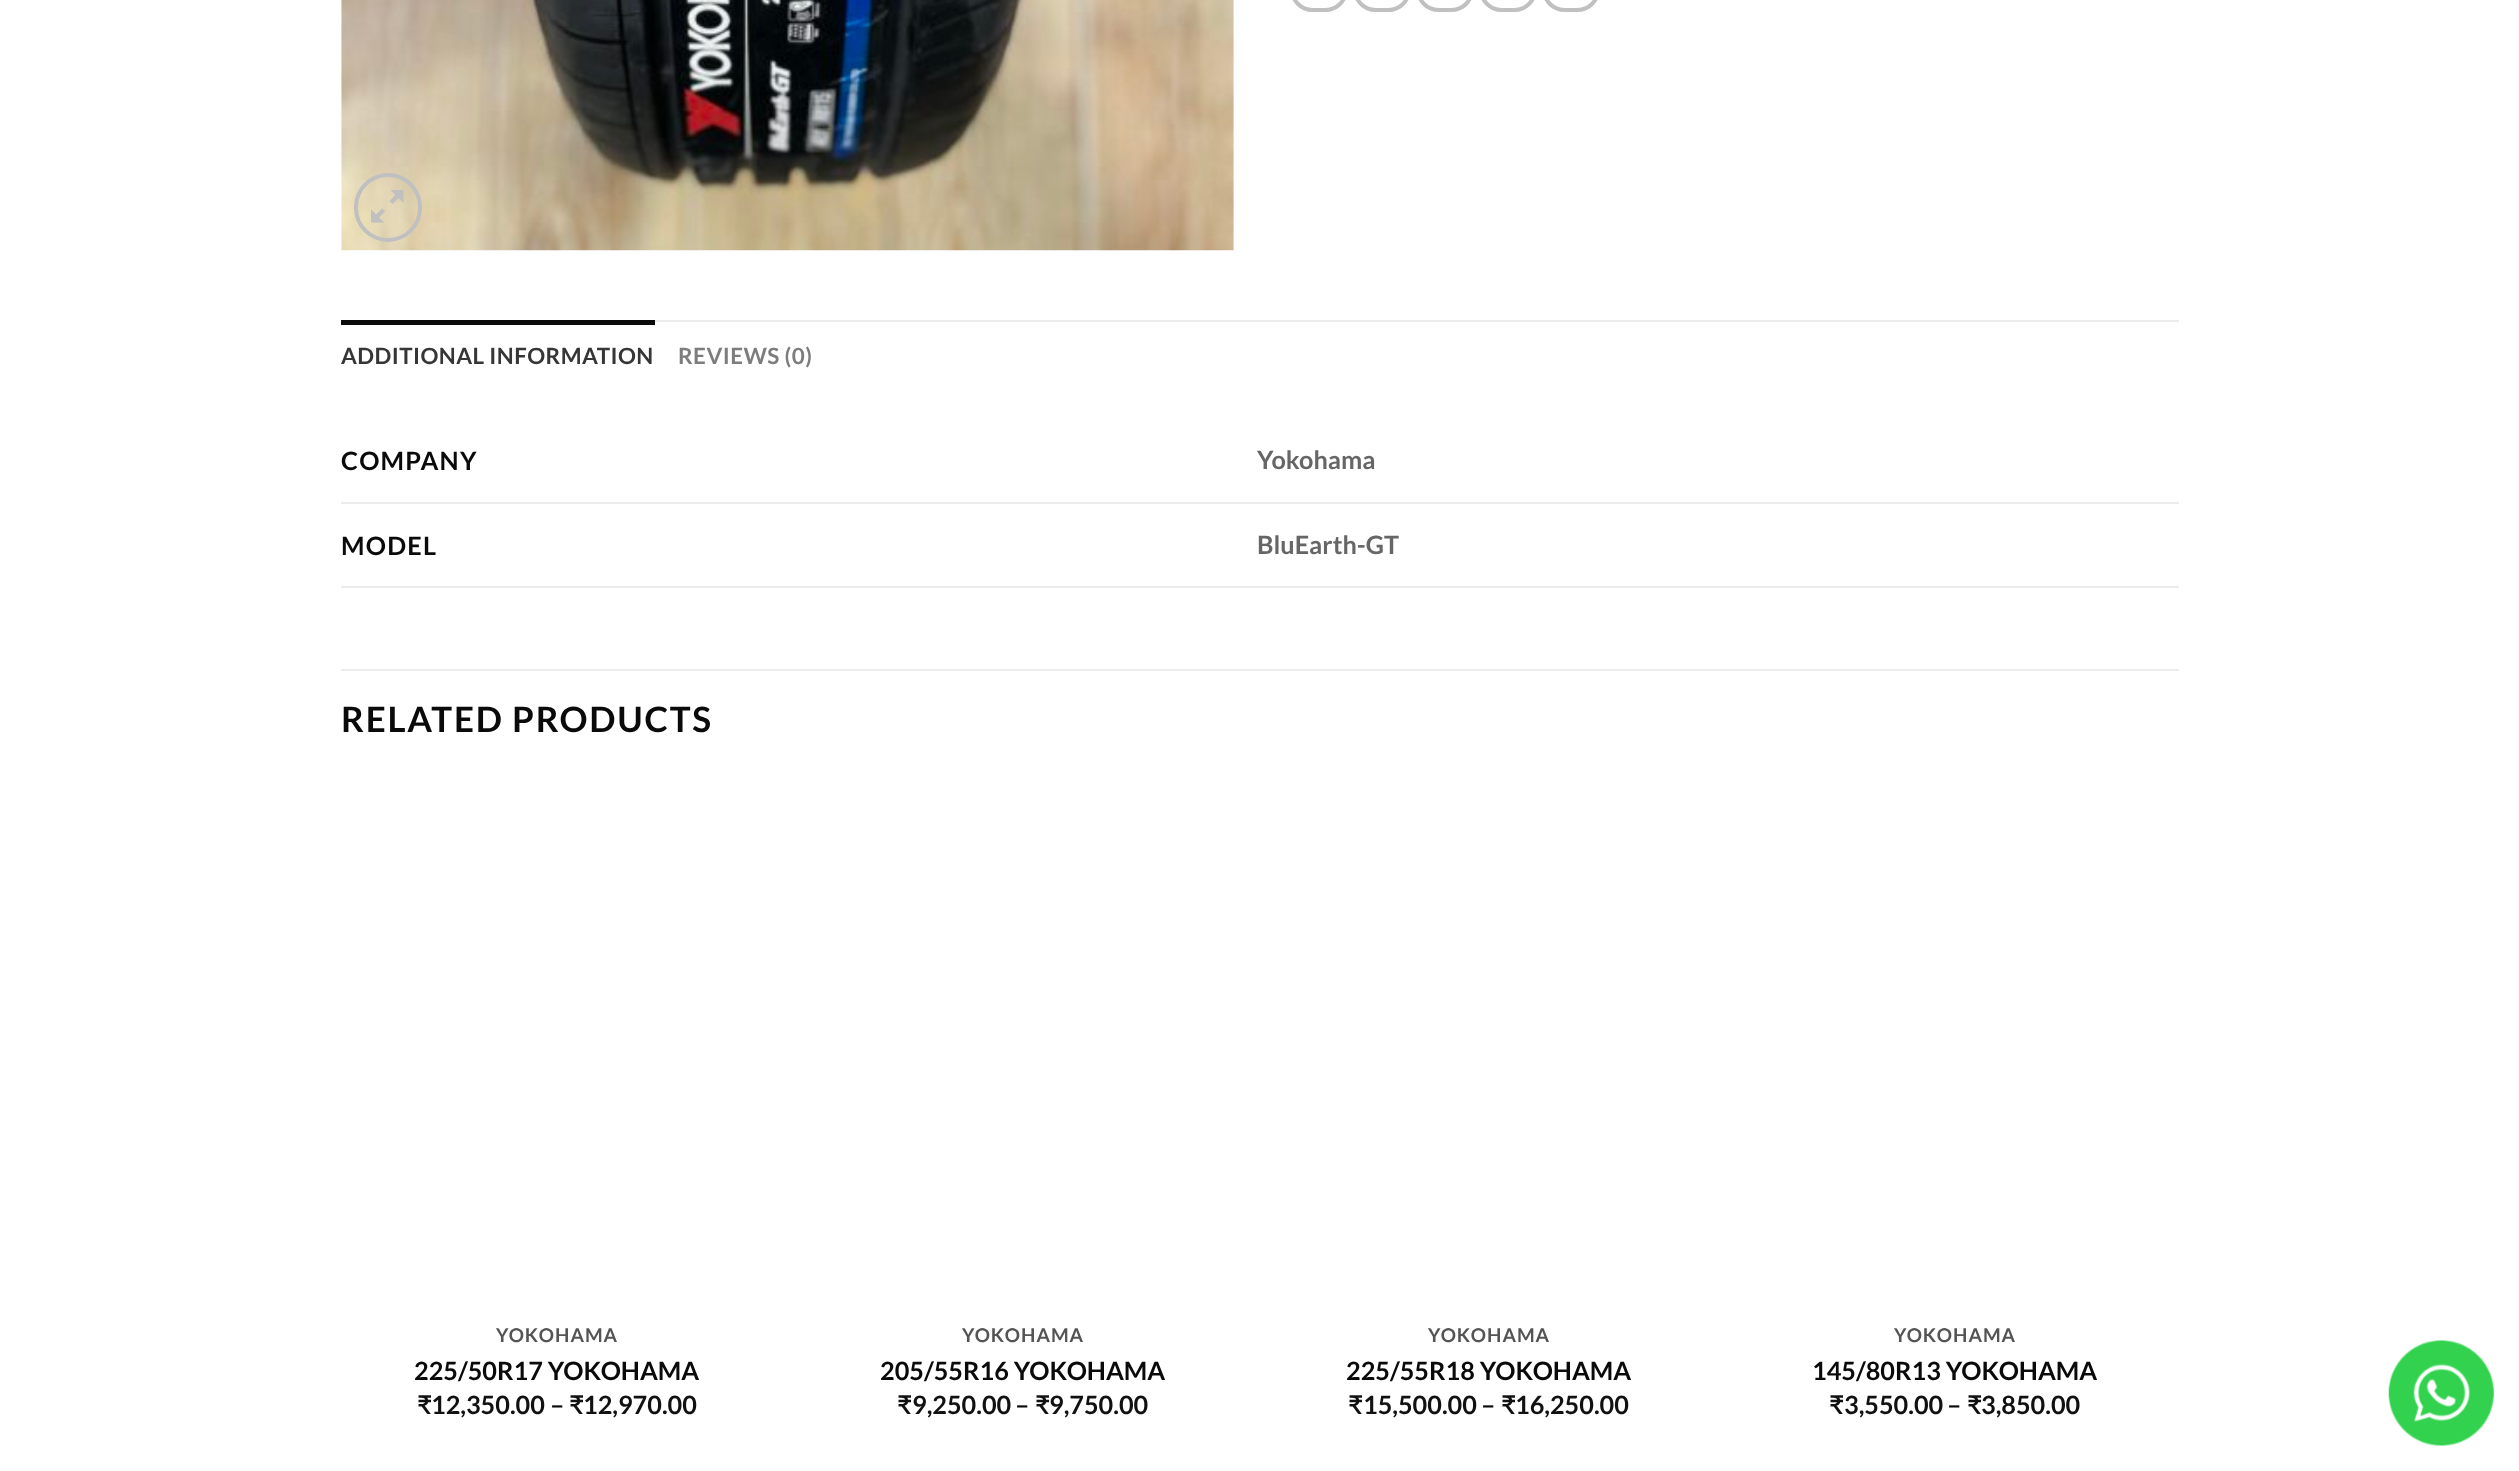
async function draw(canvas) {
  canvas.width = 2519;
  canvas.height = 1471;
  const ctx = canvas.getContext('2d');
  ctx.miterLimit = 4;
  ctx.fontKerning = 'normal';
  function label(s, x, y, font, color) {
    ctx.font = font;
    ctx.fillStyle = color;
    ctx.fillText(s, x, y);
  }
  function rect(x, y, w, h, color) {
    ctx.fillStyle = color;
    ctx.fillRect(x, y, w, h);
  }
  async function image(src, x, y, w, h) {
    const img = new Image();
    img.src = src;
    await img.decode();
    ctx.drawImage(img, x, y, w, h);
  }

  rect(0, 0, 2519, 1471, '#fff');
  ctx.beginPath();
  ctx.roundRect(1292, -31, 54, 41, 26.5);
  ctx.strokeStyle = '#c0c0c0';
  ctx.lineWidth = 4;
  ctx.stroke();
  ctx.beginPath();
  ctx.roundRect(1355, -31, 54, 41, 26.5);
  ctx.stroke();
  ctx.beginPath();
  ctx.roundRect(1418, -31, 54, 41, 26.5);
  ctx.stroke();
  ctx.beginPath();
  ctx.roundRect(1481, -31, 54, 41, 26.5);
  ctx.stroke();
  ctx.beginPath();
  ctx.roundRect(1544, -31, 54, 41, 26.5);
  ctx.stroke();
  await image('assets/img1.png', 341, 0, 893, 251);
  ctx.beginPath();
  ctx.roundRect(356, 175, 64, 65, 32);
  ctx.stroke();
  await image('assets/img2.png', 371, 190, 33, 33);
  rect(655, 320, 1524, 2, '#ececec');
  rect(341, 320, 314, 5, '#0a0a0a');
  ctx.letterSpacing = '0.45px';
  label('ADDITIONAL INFORMATION', 341, 364, 'bold 22.4px Lato', '#363636');
  label('REVIEWS (0)', 678, 364, 'bold 22.4px Lato', '#7d7d7d');
  rect(341, 502, 1838, 2, '#ececec');
  ctx.letterSpacing = '1.25px';
  label('COMPANY', 341, 470, 'bold 25.25px Lato', '#0a0a0a');
  ctx.letterSpacing = '0px';
  label('Yokohama', 1257, 469, 'bold 25.25px Lato', '#666');
  rect(341, 586, 1838, 2, '#ececec');
  ctx.letterSpacing = '1.25px';
  label('MODEL', 341, 555, 'bold 25.25px Lato', '#0a0a0a');
  ctx.letterSpacing = '0px';
  label('BluEarth-GT', 1257, 554, 'bold 25.25px Lato', '#666');
  rect(341, 669, 1838, 2, '#ececec');
  ctx.letterSpacing = '1.75px';
  label('RELATED PRODUCTS', 341, 732, 'bold 35px Lato', '#0a0a0a');
  ctx.letterSpacing = '1px';
  label('YOKOHAMA', 496, 1342, 'bold 19px Lato', '#545454');
  ctx.letterSpacing = '0px';
  label('225/50R17 YOKOHAMA', 414, 1380, 'bold 25.25px Lato', '#0a0a0a');
  label('₹', 417, 1414, 'bold 25.25px "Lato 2"', '#111');
  label('12,350.00', 431, 1414, 'bold 25.25px Lato', '#111');
  label('–', 550, 1414, 'bold 25.25px Lato', '#0a0a0a');
  label('₹', 569, 1414, 'bold 25.25px "Lato 2"', '#111');
  label('12,970.00', 583, 1414, 'bold 25.25px Lato', '#111');
  ctx.letterSpacing = '1px';
  label('YOKOHAMA', 962, 1342, 'bold 19px Lato', '#545454');
  ctx.letterSpacing = '0px';
  label('205/55R16 YOKOHAMA', 880, 1380, 'bold 25.25px Lato', '#0a0a0a');
  label('₹', 897, 1414, 'bold 25.25px "Lato 2"', '#111');
  label('9,250.00', 912, 1414, 'bold 25.25px Lato', '#111');
  label('–', 1015, 1414, 'bold 25.25px Lato', '#0a0a0a');
  label('₹', 1035, 1414, 'bold 25.25px "Lato 2"', '#111');
  label('9,750.00', 1049, 1414, 'bold 25.25px Lato', '#111');
  ctx.letterSpacing = '1px';
  label('YOKOHAMA', 1428, 1342, 'bold 19px Lato', '#545454');
  ctx.letterSpacing = '0px';
  label('225/55R18 YOKOHAMA', 1346, 1380, 'bold 25.25px Lato', '#0a0a0a');
  label('₹', 1348, 1414, 'bold 25.25px "Lato 2"', '#111');
  label('15,500.00', 1363, 1414, 'bold 25.25px Lato', '#111');
  label('–', 1481, 1414, 'bold 25.25px Lato', '#0a0a0a');
  label('₹', 1501, 1414, 'bold 25.25px "Lato 2"', '#111');
  label('16,250.00', 1515, 1414, 'bold 25.25px Lato', '#111');
  ctx.letterSpacing = '1px';
  label('YOKOHAMA', 1894, 1342, 'bold 19px Lato', '#545454');
  ctx.letterSpacing = '0px';
  label('145/80R13 YOKOHAMA', 1812, 1380, 'bold 25.25px Lato', '#0a0a0a');
  label('₹', 1829, 1414, 'bold 25.25px "Lato 2"', '#111');
  label('3,550.00', 1844, 1414, 'bold 25.25px Lato', '#111');
  label('–', 1947, 1414, 'bold 25.25px Lato', '#0a0a0a');
  label('₹', 1967, 1414, 'bold 25.25px "Lato 2"', '#111');
  label('3,850.00', 1981, 1414, 'bold 25.25px Lato', '#111');
  await image('assets/img3.png', 2388, 1340, 106, 106);
}

draw(document.querySelector('canvas'));
